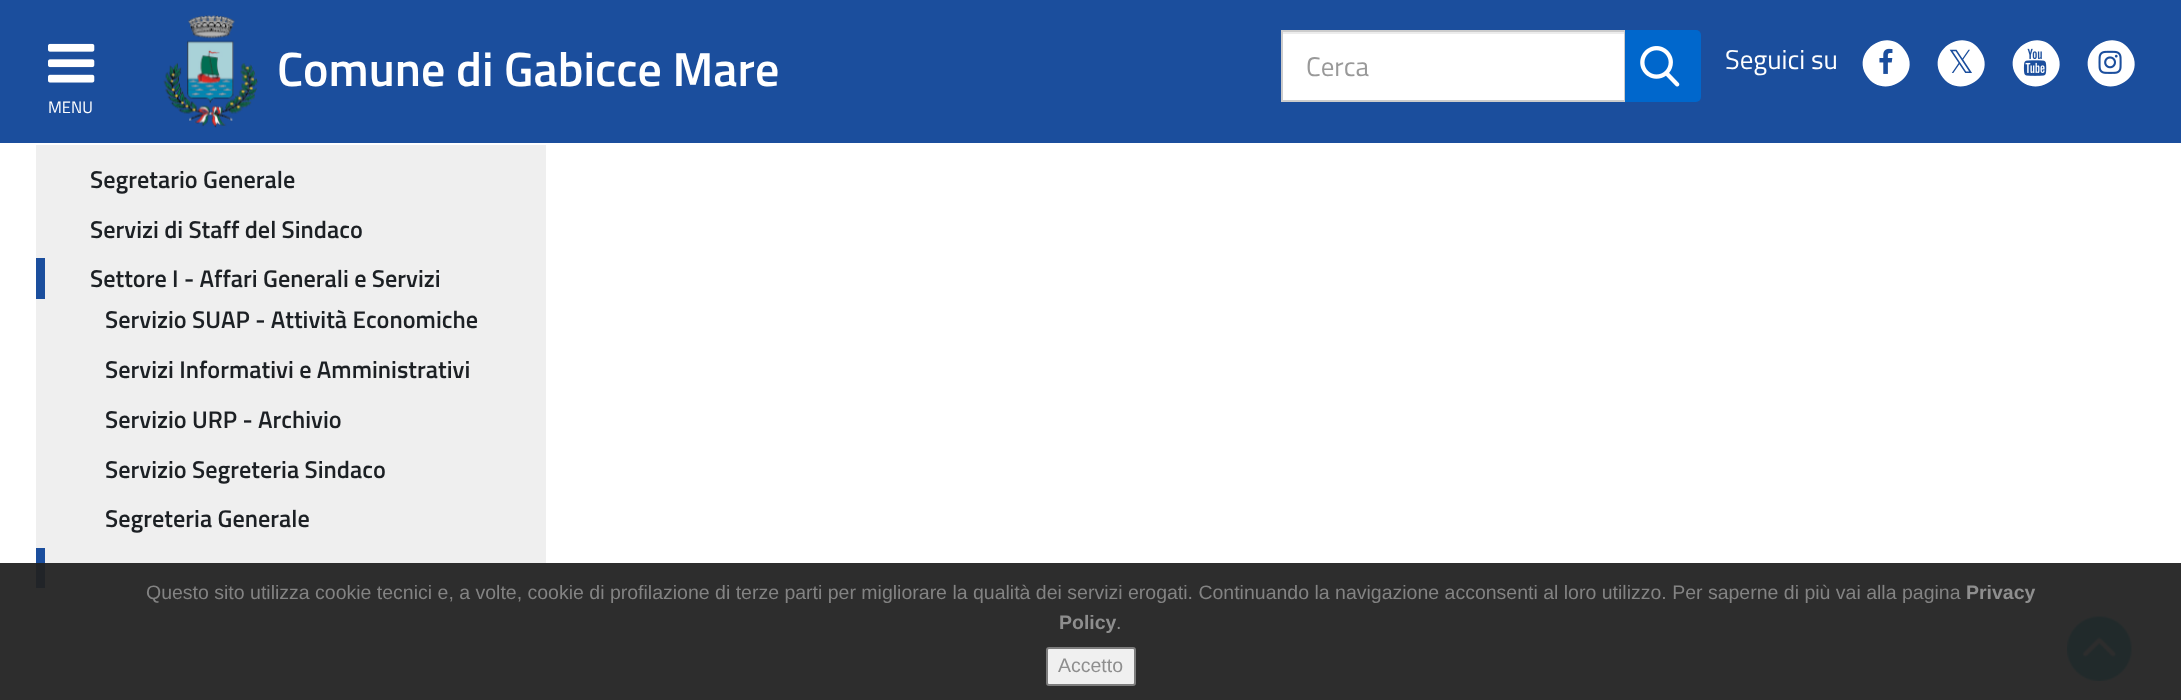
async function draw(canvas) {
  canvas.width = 2181;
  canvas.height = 700;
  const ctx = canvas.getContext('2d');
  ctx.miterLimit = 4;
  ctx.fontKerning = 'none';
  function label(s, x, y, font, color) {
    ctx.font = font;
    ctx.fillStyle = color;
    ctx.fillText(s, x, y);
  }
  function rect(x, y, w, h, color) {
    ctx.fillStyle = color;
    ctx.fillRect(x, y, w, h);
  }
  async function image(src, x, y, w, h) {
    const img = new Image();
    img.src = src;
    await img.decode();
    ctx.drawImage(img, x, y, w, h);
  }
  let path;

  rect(0, 0, 2181, 700, '#fff');
  rect(0, 0, 2181, 143, '#1b4e9d');
  await image('assets/img1.png', 163, 15, 95, 113);
  label('Comune di Gabicce Mare', 277, 86, '600 48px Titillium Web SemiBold', '#fff');
  rect(1283, 34, 341, 66, '#fff');
  rect(1283, 32, 342, 2, '#ececec');
  ctx.strokeStyle = '#ccc';
  ctx.lineWidth = 2;
  ctx.strokeRect(1282, 31, 343, 70);
  label('Cerca', 1306, 76, '27px Titillium Web', '#999');
  ctx.fillStyle = '#0067cc';
  ctx.beginPath();
  ctx.roundRect(1625, 30, 76, 72, [0, 5, 5, 0]);
  ctx.fill();
  await image('assets/img2.png', 1640, 46, 40, 41);
  label('Seguici su', 1725, 69, '27px Titillium Web', '#fff');
  path = new Path2D('M1906 52C1922 78 1882 101 1866 75C1851 49 1891 25 1906 52Z');
  ctx.fill(path);
  await image('assets/img3.png', 1879, 48, 14, 26);
  path = new Path2D('M1981 52C1997 78 1957 101 1941 75C1926 49 1966 25 1981 52Z');
  ctx.fill(path);
  label('𝕏', 1948, 73, '32px DejaVu Sans', '#1b4e9d');
  ctx.fillStyle = '#fff';
  path = new Path2D('M2056 52C2072 78 2032 101 2016 75C2001 49 2041 25 2056 52Z');
  ctx.fill(path);
  await image('assets/img4.png', 2023, 48, 24, 28);
  path = new Path2D('M2131 52C2147 78 2107 101 2091 75C2076 49 2116 25 2131 52Z');
  ctx.fill(path);
  await image('assets/img5.png', 2098, 50, 24, 24);
  await image('assets/img6.png', 48, 43, 47, 40);
  label('MENU', 48, 113, '16.5px Titillium Web', '#fff');
  rect(36, 145, 510, 555, '#efefef');
  label('Segretario Generale', 90, 188, '600 24.25px Titillium Web SemiBold', '#1c2024');
  label('Servizi di Staff del Sindaco', 90, 238, '600 24.25px Titillium Web SemiBold', '#1c2024');
  rect(36, 258, 9, 41, '#1b4e9d');
  label('Settore I - Affari Generali e Servizi', 90, 287, '600 24.25px Titillium Web SemiBold', '#1c2024');
  label('Servizio SUAP - Attività Economiche', 105, 328, '600 24.25px Titillium Web SemiBold', '#1c2024');
  label('Servizi Informativi e Amministrativi', 105, 378, '600 24.25px Titillium Web SemiBold', '#1c2024');
  label('Servizio URP - Archivio', 105, 428, '600 24.25px Titillium Web SemiBold', '#1c2024');
  label('Servizio Segreteria Sindaco', 105, 478, '600 24.25px Titillium Web SemiBold', '#1c2024');
  label('Segreteria Generale', 105, 527, '600 24.25px Titillium Web SemiBold', '#1c2024');
  rect(36, 548, 9, 40, '#1b4e9d');
  await image('assets/img7.png', 2067, 616, 65, 65);
  rect(0, 563, 2181, 137, '#222222f2');
  label('Questo sito utilizza cookie tecnici e, a volte, cookie di profilazione di terze parti per migliorare la qualità dei servizi erogati. Continuando la navigazione acconsenti al loro utilizzo. Per saperne di più vai alla pagina', 146, 599, '19.5px Liberation Sans', '#838383');
  label('Privacy', 1966, 599, 'bold 19.5px Liberation Sans', '#8e8e8e');
  label('Policy', 1059, 629, 'bold 19.5px Liberation Sans', '#8e8e8e');
  label('.', 1116, 629, '19.5px Liberation Sans', '#8e8e8e');
  ctx.fillStyle = '#f0f0f0';
  ctx.beginPath();
  ctx.roundRect(1047, 648, 88, 37, 2);
  ctx.fill();
  ctx.strokeStyle = '#7d7d7d';
  ctx.stroke();
  label('Accetto', 1058, 672, '19.5px Liberation Sans', '#8e8e8e');
}

draw(document.querySelector('canvas'));
